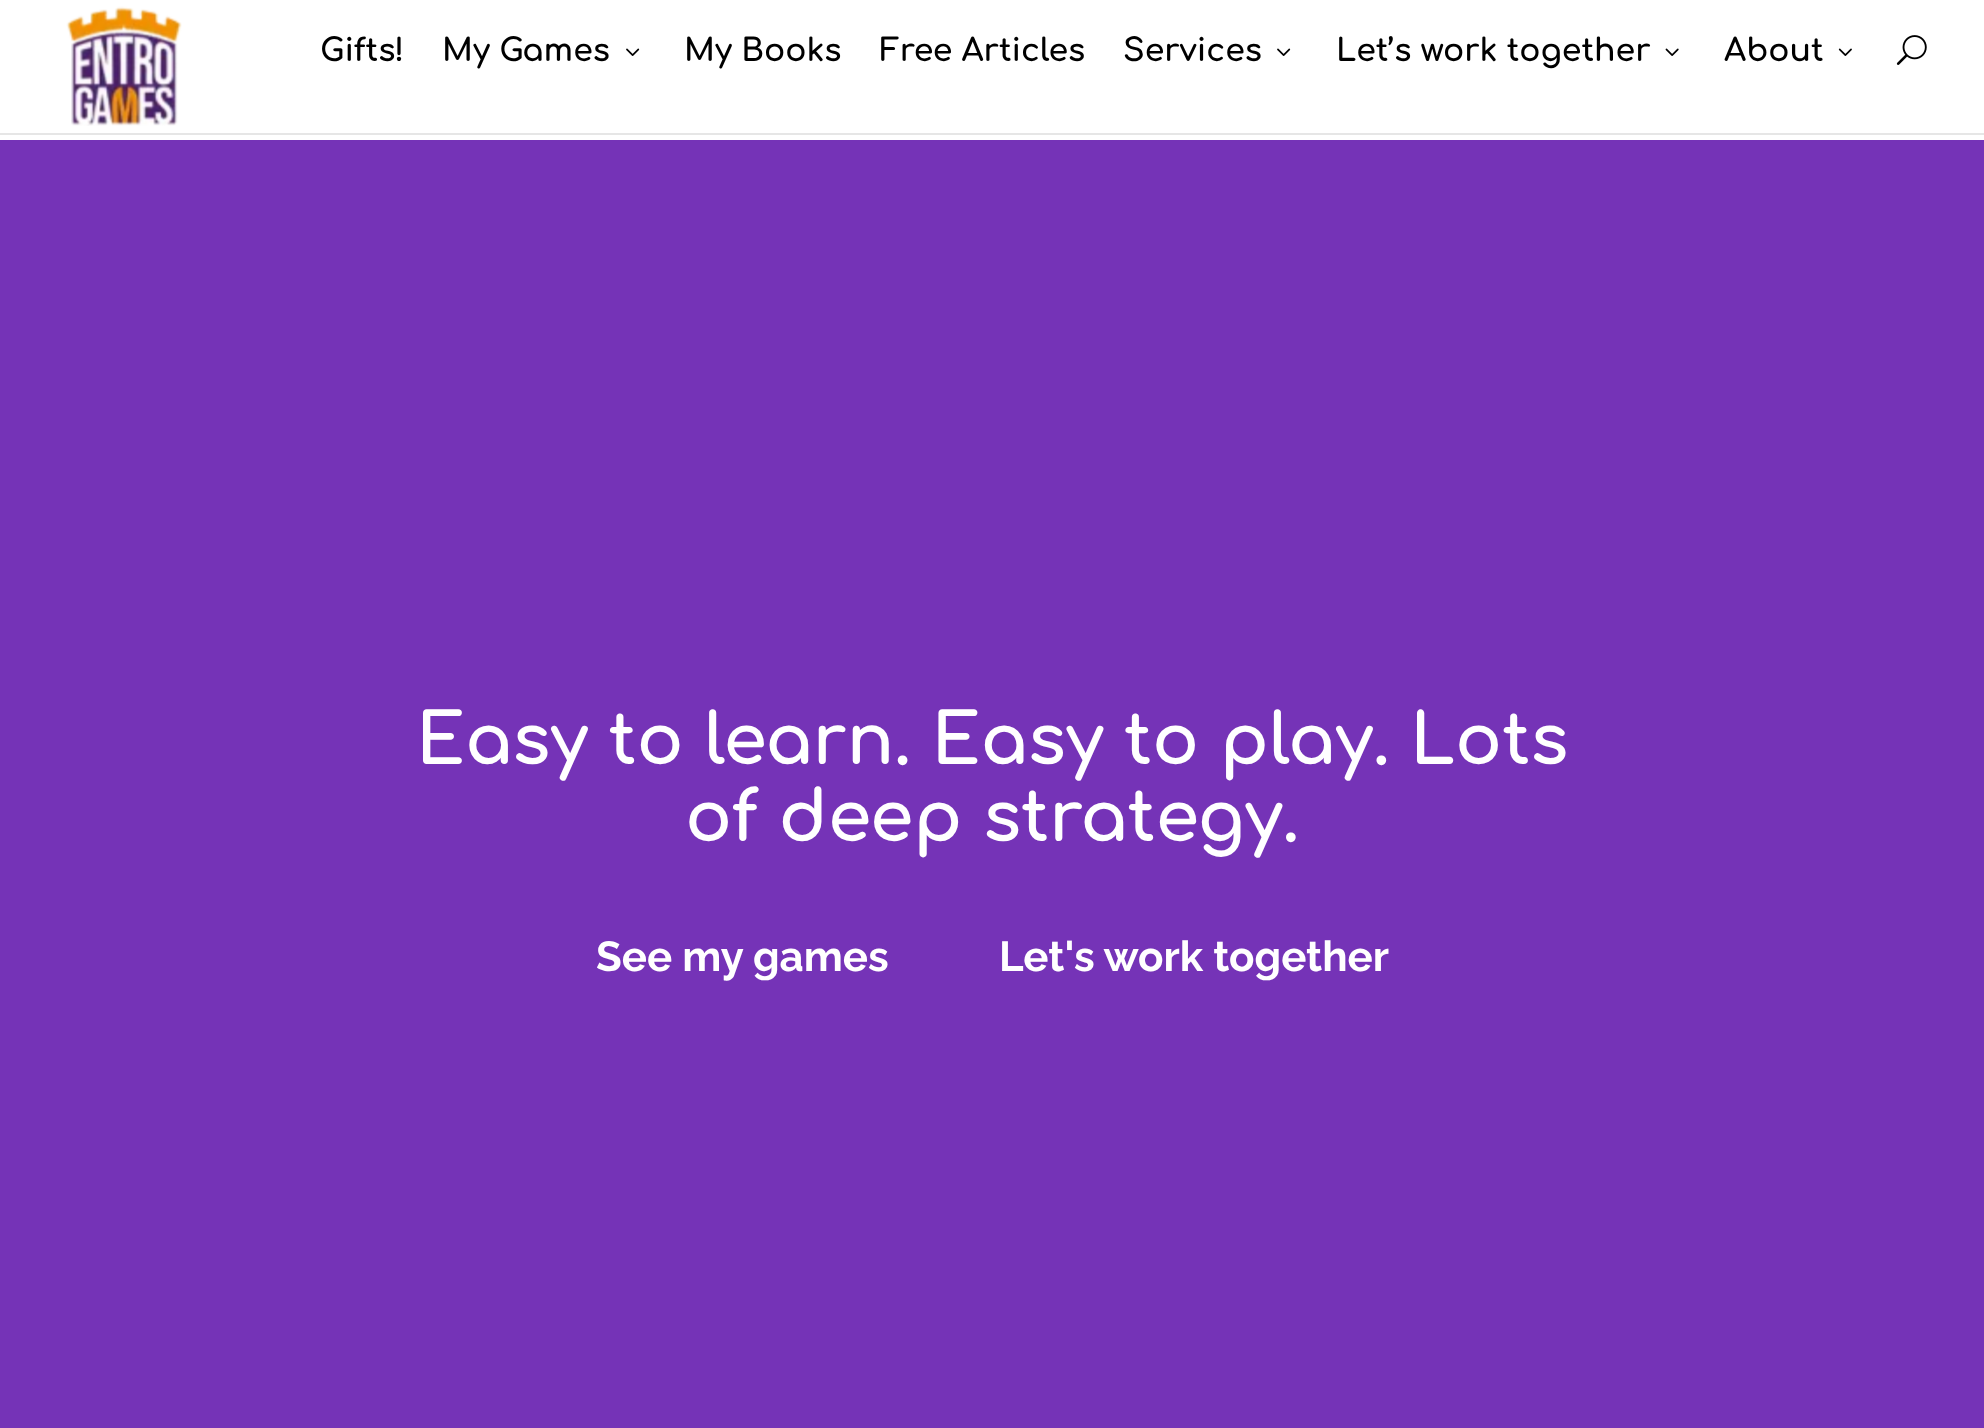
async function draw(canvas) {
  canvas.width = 1984;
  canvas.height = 1428;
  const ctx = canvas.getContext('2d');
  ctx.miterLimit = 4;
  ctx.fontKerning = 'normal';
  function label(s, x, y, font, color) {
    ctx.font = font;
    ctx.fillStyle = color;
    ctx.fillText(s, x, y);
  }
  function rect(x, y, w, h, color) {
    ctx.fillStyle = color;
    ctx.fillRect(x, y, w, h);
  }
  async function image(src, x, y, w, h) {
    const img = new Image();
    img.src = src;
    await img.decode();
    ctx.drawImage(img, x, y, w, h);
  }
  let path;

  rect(0, 0, 1984, 1428, '#fff');
  ctx.fillStyle = '#e6e6e6';
  path = new Path2D('M0 133V135H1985V2H1984V133Z');
  ctx.fill(path);
  await image('assets/img1.png', 66, 6, 116, 120);
  label('Gifts!', 320, 61, 'bold 31.5px Comfortaa', '#000');
  label('My Games', 442, 61, 'bold 31.5px Comfortaa', '#000');
  await image('assets/img2.png', 626, 48, 14, 8);
  label('My Books', 684, 61, 'bold 31.5px Comfortaa', '#000');
  label('Free Articles', 880, 61, 'bold 31.5px Comfortaa', '#000');
  label('Services', 1123, 61, 'bold 31.5px Comfortaa', '#000');
  await image('assets/img2.png', 1277, 48, 14, 8);
  label('Let’s work together', 1336, 61, 'bold 31.5px Comfortaa', '#000');
  await image('assets/img3.png', 1665, 48, 14, 8);
  label('About', 1724, 61, 'bold 31.5px Comfortaa', '#000');
  await image('assets/img4.png', 1838, 48, 14, 8);
  await image('assets/img5.png', 1896, 35, 31, 30);
  rect(0, 140, 1984, 1288, '#7533b7');
  label('Easy to learn. Easy to play. Lots', 416, 764, 'bold 70px Comfortaa', '#fff');
  label('of deep strategy.', 685, 841, 'bold 70px Comfortaa', '#fff');
  label('See my games', 596, 971, '100 42px Raleway', '#fff');
  label('Let\'s work together', 999, 971, '100 42px Raleway', '#fff');
}

draw(document.querySelector('canvas'));
